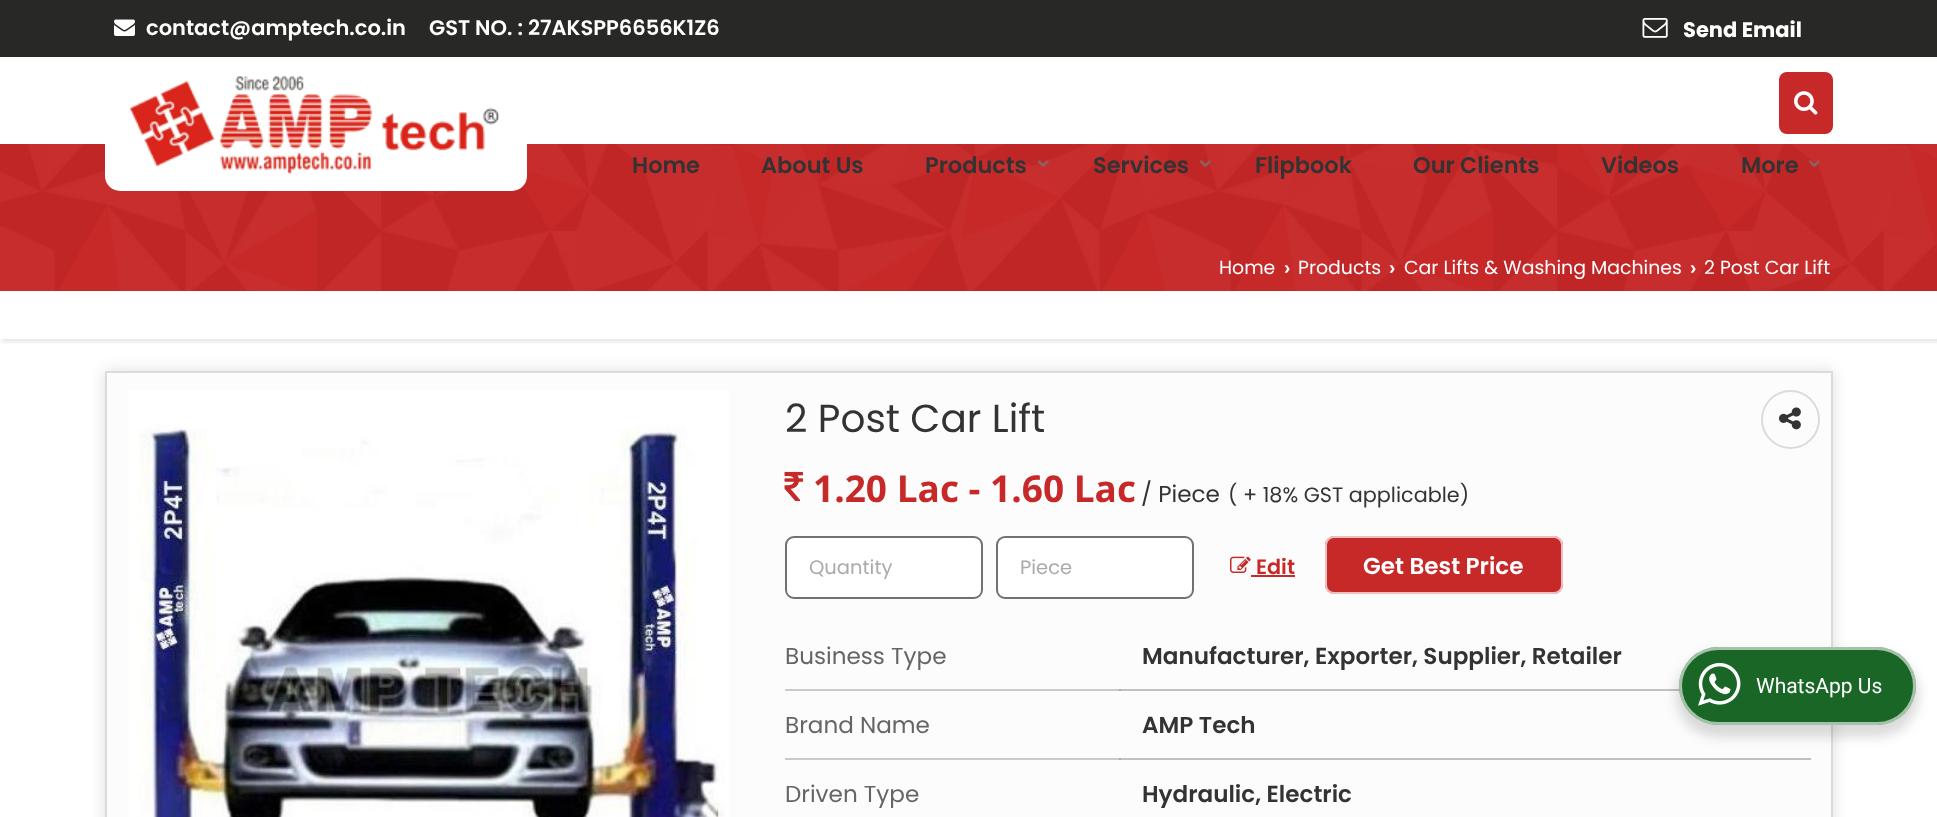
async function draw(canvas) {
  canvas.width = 1937;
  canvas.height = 817;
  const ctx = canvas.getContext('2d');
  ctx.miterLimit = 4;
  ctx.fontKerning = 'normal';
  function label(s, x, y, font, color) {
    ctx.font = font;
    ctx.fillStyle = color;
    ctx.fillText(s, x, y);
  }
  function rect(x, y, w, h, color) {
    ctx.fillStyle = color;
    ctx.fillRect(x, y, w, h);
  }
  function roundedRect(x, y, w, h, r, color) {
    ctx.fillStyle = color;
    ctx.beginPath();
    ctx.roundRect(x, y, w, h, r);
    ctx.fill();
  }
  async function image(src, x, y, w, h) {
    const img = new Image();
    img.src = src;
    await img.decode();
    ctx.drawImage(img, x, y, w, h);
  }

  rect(0, 0, 1937, 817, '#fff');
  rect(0, 0, 1937, 57, '#282826');
  await image('assets/img1.png', 114, 19, 21, 17);
  label('contact@amptech.co.in', 146, 35, '600 21px Poppins', '#fff');
  label('GST NO. : 27AKSPP6656K1Z6', 429, 35, '600 21px Poppins', '#fff');
  await image('assets/img2.png', 1642, 18, 26, 20);
  label('Send Email', 1683, 37, 'bold 21px Poppins', '#fff');
  ctx.save();
  ctx.beginPath();
  ctx.rect(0, 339, 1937, 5);
  ctx.clip();
  ctx.fillStyle = '#0000001a';
  ctx.filter = 'blur(2px)';
  ctx.beginPath();
  ctx.rect(2, 60, 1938, 282);
  ctx.fill();
  ctx.filter = 'none';
  ctx.restore();
  rect(0, 144, 1937, 147, '#c72828');
  await image('assets/img3.png', 0, 144, 1937, 147);
  ctx.fillStyle = '#fff';
  ctx.beginPath();
  ctx.roundRect(105, 57, 422, 134, [0, 0, 15, 15]);
  ctx.fill();
  await image('assets/img4.png', 129, 76, 371, 99);
  roundedRect(1779, 72, 54, 62, 8, '#c72828');
  await image('assets/img5.png', 1794, 91, 24, 24);
  label('Home', 632, 173, '600 22.5px Poppins', '#333');
  label('About Us', 761, 173, '600 22.5px Poppins', '#333');
  label('Products', 925, 173, '600 22.5px Poppins', '#333');
  await image('assets/img6.png', 1037, 160, 12, 8);
  label('Services', 1093, 173, '600 22.5px Poppins', '#333');
  await image('assets/img7.png', 1199, 160, 12, 8);
  label('Flipbook', 1255, 173, '600 22.5px Poppins', '#333');
  label('Our Clients', 1413, 173, '600 22.5px Poppins', '#333');
  label('Videos', 1601, 173, '600 22.5px Poppins', '#333');
  label('More', 1741, 173, '600 22.5px Poppins', '#333');
  await image('assets/img8.png', 1808, 160, 12, 8);
  label('Home', 1219, 274, '18.9px Poppins', '#fff');
  label('›', 1284, 274, 'bold 18.9px Liberation Sans', '#fff');
  label('Products', 1298, 274, '18.9px Poppins', '#fff');
  label('›', 1389, 274, 'bold 18.9px Liberation Sans', '#fff');
  label('Car Lifts & Washing Machines', 1404, 274, '18.9px Poppins', '#fff');
  label('›', 1690, 274, 'bold 18.9px Liberation Sans', '#fff');
  label('2 Post Car Lift', 1704, 274, '18.9px Poppins', '#fff');
  ctx.fillStyle = '#ccccccab';
  ctx.filter = 'blur(7.5px)';
  ctx.beginPath();
  ctx.rect(105, 371, 1728, 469);
  ctx.fill();
  ctx.filter = 'none';
  ctx.fillStyle = '#fcfcfc';
  ctx.beginPath();
  ctx.rect(106, 372, 1726, 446);
  ctx.fill();
  ctx.strokeStyle = '#dbdbdb';
  ctx.lineWidth = 2;
  ctx.stroke();
  await image('assets/img9.png', 129, 390, 600, 427);
  label('2 Post Car Lift', 785, 432, '39px Poppins', '#333');
  ctx.beginPath();
  ctx.arc(1790.5, 419.5, 28.5, 0, 2 * Math.PI);
  ctx.stroke();
  await image('assets/img10.png', 1779, 407, 22, 23);
  await image('assets/img11.png', 784, 471, 19, 30);
  label('1.20 Lac - 1.60 Lac', 813, 502, 'bold 37px Open Sans', '#c72828');
  label('/ Piece', 1141, 502, '23.1px Poppins', '#333');
  label('( + 18% GST applicable)', 1228, 502, '20.75px Poppins', '#333');
  ctx.fillStyle = '#fff';
  ctx.beginPath();
  ctx.roundRect(786, 537, 196, 61, 8);
  ctx.fill();
  ctx.strokeStyle = '#717171';
  ctx.stroke();
  label('Quantity', 809, 574, '19.5px Poppins', '#aaa');
  ctx.fillStyle = '#fff';
  ctx.beginPath();
  ctx.roundRect(997, 537, 196, 61, 8);
  ctx.fill();
  ctx.stroke();
  label('Piece', 1020, 574, '19.5px Poppins', '#aaa');
  await image('assets/img12.png', 1230, 556, 21, 17);
  label('Edit', 1256, 574, '600 20.75px Poppins', '#c72828');
  rect(1251, 575, 44, 2, '#c72828');
  roundedRect(1325, 536, 238, 58, 9, '#c72828');
  ctx.beginPath();
  ctx.roundRect(1326, 537, 236, 56, 8);
  ctx.strokeStyle = '#ffffffb3';
  ctx.stroke();
  label('Get Best Price', 1363, 574, '600 23.1px Poppins', '#fff');
  label('Business Type', 785, 664, '23.1px Poppins', '#656565');
  rect(785, 689, 336, 2, '#cacaca');
  rect(1119, 689, 561, 2, '#c1c1c1');
  rect(1119, 689, 2, 2, '#acacac');
  label('Manufacturer, Exporter, Supplier, Retailer', 1142, 664, '600 23.1px Poppins', '#333');
  label('Brand Name', 785, 733, '23.1px Poppins', '#656565');
  rect(785, 758, 336, 2, '#cacaca');
  rect(1119, 758, 692, 2, '#c1c1c1');
  rect(1119, 758, 2, 2, '#acacac');
  label('AMP Tech', 1142, 733, '600 23.1px Poppins', '#333');
  label('Driven Type', 785, 802, '23.1px Poppins', '#656565');
  label('Hydraulic, Electric', 1142, 802, '600 23.1px Poppins', '#333');
  ctx.fillStyle = '#00000024';
  ctx.filter = 'blur(6px)';
  ctx.beginPath();
  ctx.roundRect(1676, 653, 243, 84, 42);
  ctx.fill();
  ctx.filter = 'none';
  roundedRect(1679, 647, 237, 78, 39, '#196626');
  ctx.beginPath();
  ctx.roundRect(1680.5, 648.5, 234, 75, 37.5);
  ctx.strokeStyle = '#ffffff99';
  ctx.lineWidth = 3;
  ctx.stroke();
  await image('assets/img13.png', 1698, 662, 43, 44);
  label('WhatsApp Us', 1756, 693, '21px Roboto', '#fff');
}

draw(document.querySelector('canvas'));
